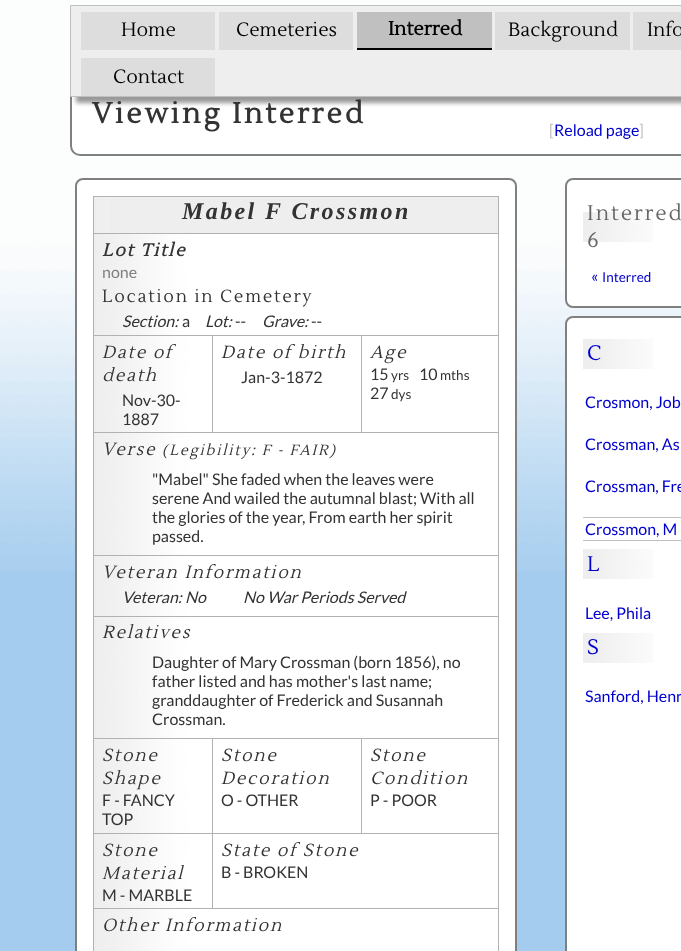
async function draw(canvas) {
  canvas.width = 681;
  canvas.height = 951;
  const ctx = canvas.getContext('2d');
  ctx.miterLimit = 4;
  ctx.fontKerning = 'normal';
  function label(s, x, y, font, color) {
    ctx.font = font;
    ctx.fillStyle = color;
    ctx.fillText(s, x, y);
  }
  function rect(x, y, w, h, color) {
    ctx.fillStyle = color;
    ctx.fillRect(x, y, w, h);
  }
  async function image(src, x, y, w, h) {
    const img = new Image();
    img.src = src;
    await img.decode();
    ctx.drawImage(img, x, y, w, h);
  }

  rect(0, 0, 681, 951, '#a4ccee');
  await image('assets/img1.png', 0, 0, 681, 571);
  ctx.fillStyle = '#fff';
  ctx.beginPath();
  ctx.roundRect(71, 75, 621, 80, 9);
  ctx.fill();
  ctx.strokeStyle = '#808080';
  ctx.lineWidth = 2;
  ctx.stroke();
  ctx.fillStyle = '#999';
  ctx.filter = 'blur(2px)';
  ctx.beginPath();
  ctx.rect(76, 11, 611, 92);
  ctx.fill();
  ctx.filter = 'none';
  ctx.fillStyle = '#eee';
  ctx.beginPath();
  ctx.rect(70.5, 5.5, 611, 91);
  ctx.fill();
  ctx.strokeStyle = '#c0c0c0';
  ctx.lineWidth = 1;
  ctx.stroke();
  rect(81, 12, 134, 38, '#ddd');
  label('Home', 121, 36, '19.25px Lustria', '#000');
  rect(219, 12, 134, 38, '#ddd');
  label('Cemeteries', 236, 36, '19.25px Lustria', '#000');
  rect(357, 12, 135, 36, '#c0c0c0');
  rect(357, 48, 135, 2, '#000');
  label('Interred', 388, 35, 'bold 19.25px Lustria', '#000');
  rect(495, 12, 135, 38, '#ddd');
  label('Background', 508, 36, '19.25px Lustria', '#000');
  rect(633, 12, 48, 38, '#ddd');
  label('Info', 647, 36, '19.25px Lustria', '#000');
  rect(81, 58, 134, 38, '#ddd');
  label('Contact', 113, 83, '19.25px Lustria', '#000');
  ctx.letterSpacing = '2.9px';
  label('Viewing Interred', 92, 123, 'bold 28.75px Lustria', '#333');
  ctx.letterSpacing = '0px';
  label('[', 549, 136, '16px Lato', '#c0c0c0');
  label('Reload page', 554, 136, '16px Lato', '#0000cd');
  label(']', 639, 136, '16px Lato', '#c0c0c0');
  ctx.fillStyle = '#fff';
  ctx.beginPath();
  ctx.roundRect(76, 179, 440, 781, 7);
  ctx.fill();
  ctx.strokeStyle = '#808080';
  ctx.lineWidth = 2;
  ctx.stroke();
  await image('assets/img2.png', 93, 197, 269, 754);
  rect(110, 197, 388, 36, '#eee');
  rect(93, 196, 406, 1, '#b2b2b2');
  rect(362, 233, 137, 1, '#b2b2b2');
  rect(361, 335, 138, 1, '#b2b2b2');
  rect(362, 432, 137, 1, '#b2b2b2');
  rect(362, 555, 137, 1, '#b2b2b2');
  rect(362, 616, 137, 1, '#b2b2b2');
  rect(361, 738, 138, 1, '#b2b2b2');
  rect(362, 833, 137, 1, '#b2b2b2');
  rect(362, 908, 137, 1, '#b2b2b2');
  rect(498, 908, 1, 43, '#b2b2b2');
  rect(498, 833, 1, 76, '#b2b2b2');
  rect(498, 738, 1, 96, '#b2b2b2');
  rect(498, 616, 1, 123, '#b2b2b2');
  rect(498, 555, 1, 62, '#b2b2b2');
  rect(498, 432, 1, 124, '#b2b2b2');
  rect(498, 335, 1, 98, '#b2b2b2');
  rect(498, 233, 1, 103, '#b2b2b2');
  rect(498, 196, 1, 38, '#b2b2b2');
  ctx.letterSpacing = '2.4px';
  label('Mabel F Crossmon', 182, 219, 'italic bold 24px Liberation Serif', '#333');
  ctx.letterSpacing = '1.75px';
  label('Lot Title', 102, 256, 'italic bold 17.6px Lustria', '#333');
  ctx.letterSpacing = '0px';
  label('none', 102, 278, '16px Lato', '#808080');
  ctx.letterSpacing = '1.75px';
  label('Location in Cemetery', 102, 302, '17.6px Lustria', '#333');
  ctx.letterSpacing = '0px';
  label('Section:', 122, 327, 'italic 16px Lato', '#333');
  label('a', 182, 327, '16px Lato', '#333');
  label('Lot:', 205, 327, 'italic 16px Lato', '#333');
  label('--', 235, 327, '16px Lato', '#333');
  label('Grave:', 262, 327, 'italic 16px Lato', '#333');
  label('--', 311, 327, '16px Lato', '#333');
  ctx.letterSpacing = '1.75px';
  label('Date of', 102, 358, 'italic 17.6px Lustria', '#333');
  label('death', 102, 381, 'italic 17.6px Lustria', '#333');
  ctx.letterSpacing = '0px';
  label('Nov-30-', 122, 406, '16px Lato', '#333');
  label('1887', 122, 425, '16px Lato', '#333');
  ctx.letterSpacing = '1.75px';
  label('Date of birth', 221, 358, 'italic 17.6px Lustria', '#333');
  ctx.letterSpacing = '0px';
  label('Jan-3-1872', 241, 383, '16px Lato', '#333');
  ctx.letterSpacing = '1.75px';
  label('Age', 370, 358, 'italic 17.6px Lustria', '#333');
  ctx.letterSpacing = '0px';
  label('15', 370, 380, '16px Lato', '#333');
  label('yrs', 391, 380, '13.5px Lato', '#333');
  label('10', 419, 380, '16px Lato', '#333');
  label('mths', 440, 380, '13.5px Lato', '#333');
  label('27', 370, 399, '16px Lato', '#333');
  label('dys', 391, 399, '13.5px Lato', '#333');
  ctx.letterSpacing = '1.75px';
  label('Verse', 102, 455, 'italic 17.6px Lustria', '#333');
  label('(Legibility: F - FAIR)', 162, 455, 'italic 14.75px Lustria', '#333');
  ctx.letterSpacing = '0px';
  label('"Mabel" She faded when the leaves were', 152, 485, '16px Lato', '#333');
  label('serene And wailed the autumnal blast; With all', 152, 504, '16px Lato', '#333');
  label('the glories of the year, From earth her spirit', 152, 523, '16px Lato', '#333');
  label('passed.', 152, 542, '16px Lato', '#333');
  ctx.letterSpacing = '1.75px';
  label('Veteran Information', 102, 578, 'italic 17.6px Lustria', '#333');
  ctx.letterSpacing = '0px';
  label('Veteran: No', 122, 603, 'italic 16px Lato', '#333');
  label('No War Periods Served', 243, 603, 'italic 16px Lato', '#333');
  ctx.letterSpacing = '1.75px';
  label('Relatives', 102, 638, 'italic 17.6px Lustria', '#333');
  ctx.letterSpacing = '0px';
  label('Daughter of Mary Crossman (born 1856), no', 152, 668, '16px Lato', '#333');
  label('father listed and has mother\'s last name;', 152, 687, '16px Lato', '#333');
  label('granddaughter of Frederick and Susannah', 152, 706, '16px Lato', '#333');
  label('Crossman.', 152, 725, '16px Lato', '#333');
  ctx.letterSpacing = '1.75px';
  label('Stone', 102, 761, 'italic 17.6px Lustria', '#333');
  label('Shape', 102, 784, 'italic 17.6px Lustria', '#333');
  ctx.letterSpacing = '0px';
  label('F - FANCY', 102, 806, '16px Lato', '#333');
  label('TOP', 102, 825, '16px Lato', '#333');
  ctx.letterSpacing = '1.75px';
  label('Stone', 221, 761, 'italic 17.6px Lustria', '#333');
  label('Decoration', 221, 784, 'italic 17.6px Lustria', '#333');
  ctx.letterSpacing = '0px';
  label('O - OTHER', 221, 806, '16px Lato', '#333');
  ctx.letterSpacing = '1.75px';
  label('Stone', 370, 761, 'italic 17.6px Lustria', '#333');
  label('Condition', 370, 784, 'italic 17.6px Lustria', '#333');
  ctx.letterSpacing = '0px';
  label('P - POOR', 370, 806, '16px Lato', '#333');
  ctx.letterSpacing = '1.75px';
  label('Stone', 102, 856, 'italic 17.6px Lustria', '#333');
  label('Material', 102, 879, 'italic 17.6px Lustria', '#333');
  ctx.letterSpacing = '0px';
  label('M - MARBLE', 102, 901, '16px Lato', '#333');
  ctx.letterSpacing = '1.75px';
  label('State of Stone', 221, 856, 'italic 17.6px Lustria', '#333');
  ctx.letterSpacing = '0px';
  label('B - BROKEN', 221, 878, '16px Lato', '#333');
  ctx.letterSpacing = '1.75px';
  label('Other Information', 102, 931, 'italic 17.6px Lustria', '#333');
  ctx.fillStyle = '#fff';
  ctx.beginPath();
  ctx.roundRect(566, 179, 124, 128, 7);
  ctx.fill();
  ctx.stroke();
  await image('assets/img3.png', 583, 212, 70, 30);
  ctx.letterSpacing = '2px';
  label('Interred', 587, 220, '21px Lustria', '#666');
  label('6', 587, 247, '21px Lustria', '#666');
  ctx.letterSpacing = '0px';
  label('«', 591, 282, '16px Lato', '#0000cd');
  label('Interred', 602, 282, '13.5px Lato', '#0000cd');
  ctx.fillStyle = '#fff';
  ctx.beginPath();
  ctx.roundRect(566, 317, 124, 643, 7);
  ctx.fill();
  ctx.stroke();
  await image('assets/img3.png', 583, 339, 70, 30);
  ctx.letterSpacing = '2px';
  label('C', 587, 360, '21px Lustria', '#0000cd');
  ctx.letterSpacing = '0px';
  label('Crosmon, Job', 585, 408, '16px Lato', '#0000cd');
  label('Crossman, As', 585, 450, '16px Lato', '#0000cd');
  label('Crossman, Fre', 585, 492, '16px Lato', '#0000cd');
  rect(583, 517, 98, 1, '#c0c0c0');
  rect(583, 540, 98, 1, '#c0c0c0');
  label('Crossmon, M', 585, 535, '16px Lato', '#0000cd');
  await image('assets/img3.png', 583, 549, 70, 30);
  ctx.letterSpacing = '2px';
  label('L', 587, 571, '21px Lustria', '#0000cd');
  ctx.letterSpacing = '0px';
  label('Lee, Phila', 585, 619, '16px Lato', '#0000cd');
  await image('assets/img3.png', 583, 633, 70, 30);
  ctx.letterSpacing = '2px';
  label('S', 587, 654, '21px Lustria', '#0000cd');
  ctx.letterSpacing = '0px';
  label('Sanford, Henr', 585, 702, '16px Lato', '#0000cd');
}

draw(document.querySelector('canvas'));
